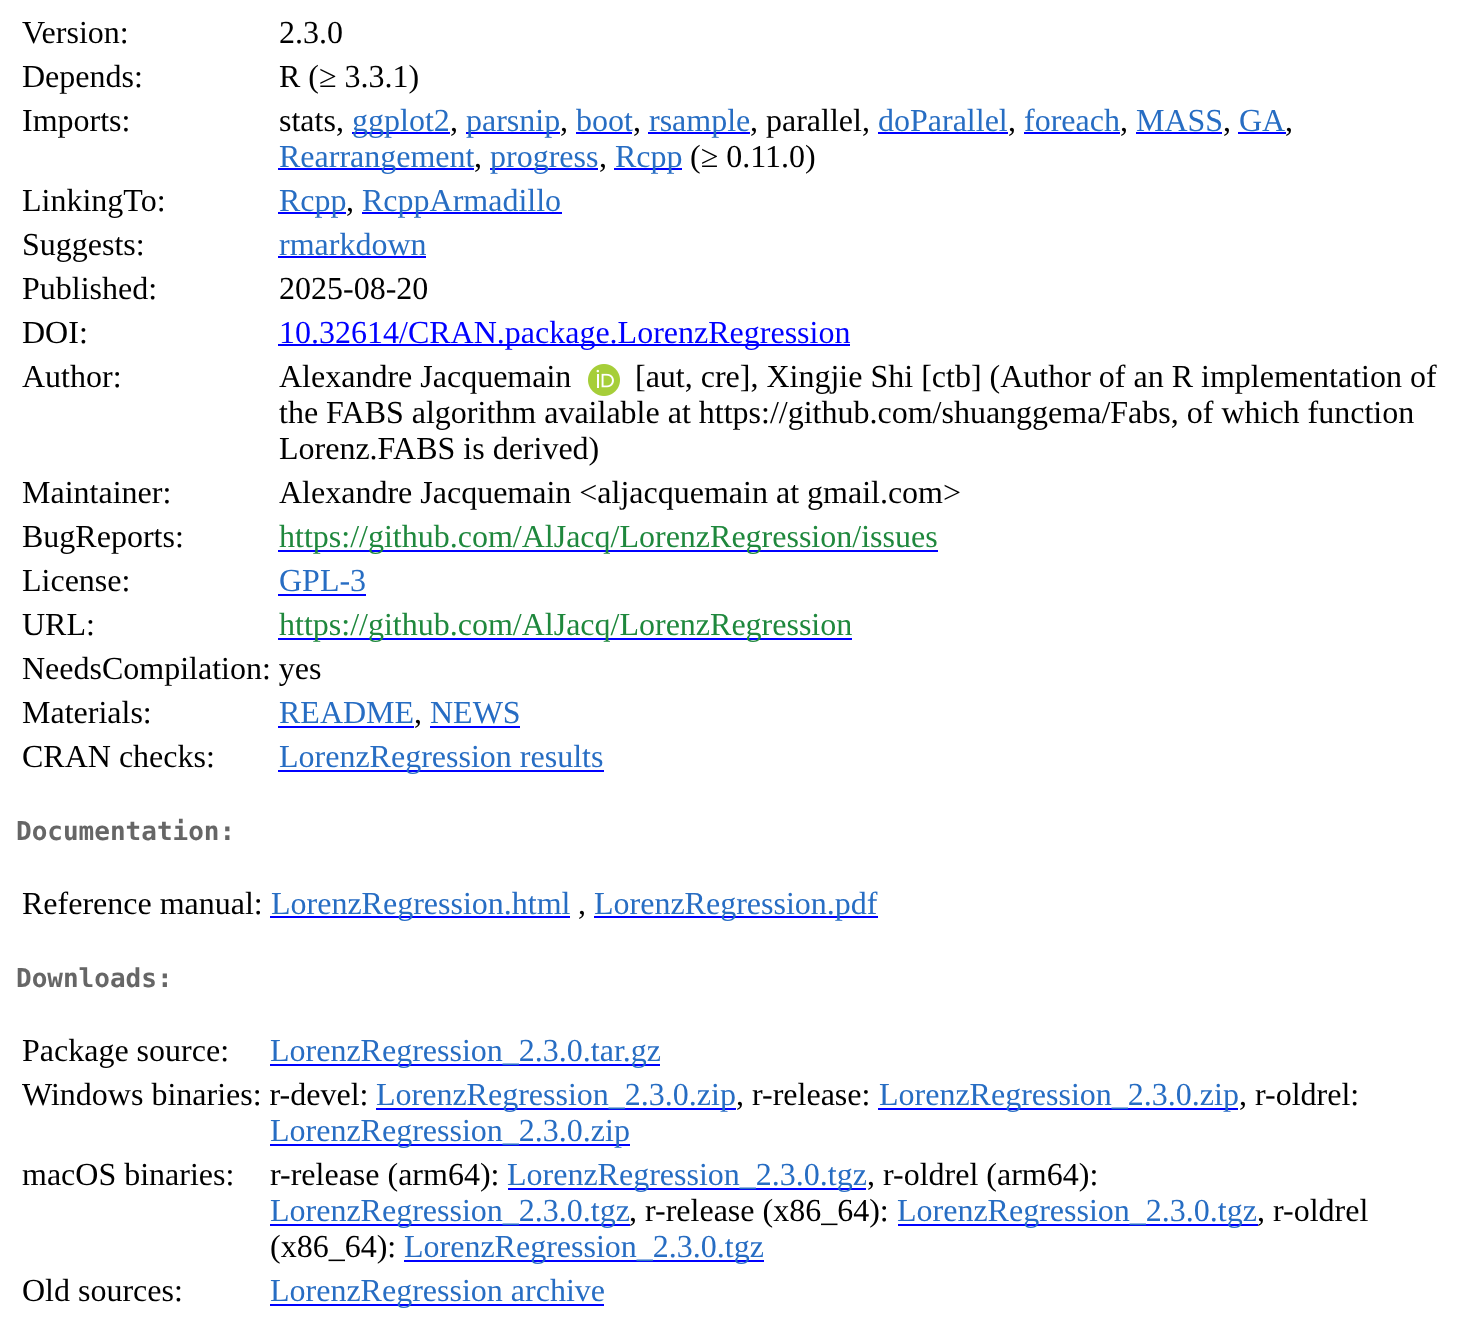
async function draw(canvas) {
  canvas.width = 1476;
  canvas.height = 1321;
  const ctx = canvas.getContext('2d');
  ctx.miterLimit = 4;
  ctx.fontKerning = 'normal';
  function label(s, x, y, font, color) {
    ctx.font = font;
    ctx.fillStyle = color;
    ctx.fillText(s, x, y);
  }
  function rect(x, y, w, h, color) {
    ctx.fillStyle = color;
    ctx.fillRect(x, y, w, h);
  }
  async function image(src, x, y, w, h) {
    const img = new Image();
    img.src = src;
    await img.decode();
    ctx.drawImage(img, x, y, w, h);
  }

  rect(0, 0, 1476, 1321, '#fff');
  label('Version:', 22, 43, '32px Liberation Serif', '#000');
  label('2.3.0', 279, 43, '32px Liberation Serif', '#000');
  label('Depends:', 22, 87, '32px Liberation Serif', '#000');
  label('R (≥ 3.3.1)', 279, 87, '32px Liberation Serif', '#000');
  label('Imports:', 22, 131, '32px Liberation Serif', '#000');
  label('stats,', 279, 131, '32px Liberation Serif', '#000');
  rect(352, 132, 98, 2, '#00f');
  label('ggplot2', 352, 131, '32px Liberation Serif', '#276dc3');
  label(',', 450, 131, '32px Liberation Serif', '#000');
  rect(466, 132, 94, 2, '#00f');
  label('parsnip', 466, 131, '32px Liberation Serif', '#276dc3');
  label(',', 560, 131, '32px Liberation Serif', '#000');
  label('boot', 576, 131, '32px Liberation Serif', '#276dc3');
  rect(576, 132, 56, 2, '#00f');
  label(',', 633, 131, '32px Liberation Serif', '#000');
  rect(648, 132, 102, 2, '#00f');
  label('rsample', 649, 131, '32px Liberation Serif', '#276dc3');
  label(', parallel,', 750, 131, '32px Liberation Serif', '#000');
  label('doParallel', 878, 131, '32px Liberation Serif', '#276dc3');
  rect(878, 132, 130, 2, '#00f');
  label(',', 1008, 131, '32px Liberation Serif', '#000');
  label('foreach', 1024, 131, '32px Liberation Serif', '#276dc3');
  rect(1024, 132, 96, 2, '#00f');
  label(',', 1120, 131, '32px Liberation Serif', '#000');
  label('MASS', 1136, 131, '32px Liberation Serif', '#276dc3');
  rect(1136, 132, 86, 2, '#00f');
  label(',', 1223, 131, '32px Liberation Serif', '#000');
  label('GA', 1239, 131, '32px Liberation Serif', '#276dc3');
  rect(1238, 132, 48, 2, '#00f');
  label(',', 1285, 131, '32px Liberation Serif', '#000');
  rect(278, 168, 196, 2, '#00f');
  label('Rearrangement', 279, 167, '32px Liberation Serif', '#276dc3');
  label(',', 474, 167, '32px Liberation Serif', '#000');
  rect(490, 168, 108, 2, '#00f');
  label('progress', 490, 167, '32px Liberation Serif', '#276dc3');
  label(',', 599, 167, '32px Liberation Serif', '#000');
  rect(614, 168, 68, 2, '#00f');
  label('Rcpp', 615, 167, '32px Liberation Serif', '#276dc3');
  label('(≥ 0.11.0)', 690, 167, '32px Liberation Serif', '#000');
  label('LinkingTo:', 22, 211, '32px Liberation Serif', '#000');
  rect(278, 212, 68, 2, '#00f');
  label('Rcpp', 279, 211, '32px Liberation Serif', '#276dc3');
  label(',', 346, 211, '32px Liberation Serif', '#000');
  rect(362, 212, 200, 2, '#00f');
  label('RcppArmadillo', 362, 211, '32px Liberation Serif', '#276dc3');
  label('Suggests:', 22, 255, '32px Liberation Serif', '#000');
  label('rmarkdown', 279, 255, '32px Liberation Serif', '#276dc3');
  rect(278, 256, 148, 2, '#00f');
  label('Published:', 22, 299, '32px Liberation Serif', '#000');
  label('2025-08-20', 279, 299, '32px Liberation Serif', '#000');
  label('DOI:', 22, 343, '32px Liberation Serif', '#000');
  rect(278, 344, 572, 2, '#00f');
  label('10.32614/CRAN.package.LorenzRegression', 279, 343, '32px Liberation Serif', '#00f');
  label('Author:', 22, 387, '32px Liberation Serif', '#000');
  label('Alexandre Jacquemain', 279, 387, '32px Liberation Serif', '#000');
  await image('assets/img1.png', 588, 364, 32, 32);
  label('[aut, cre], Xingjie Shi [ctb] (Author of an R implementation of', 635, 387, '32px Liberation Serif', '#000');
  label('the FABS algorithm available at https://github.com/shuanggema/Fabs, of which function', 279, 423, '32px Liberation Serif', '#000');
  label('Lorenz.FABS is derived)', 279, 459, '32px Liberation Serif', '#000');
  label('Maintainer:', 22, 503, '32px Liberation Serif', '#000');
  label('Alexandre Jacquemain <aljacquemain at gmail.com>', 279, 503, '32px Liberation Serif', '#000');
  label('BugReports:', 22, 547, '32px Liberation Serif', '#000');
  rect(278, 550, 660, 2, '#00f');
  label('https://github.com/AlJacq/LorenzRegression/issues', 279, 547, '32px Liberation Serif', '#1f883d');
  label('License:', 22, 591, '32px Liberation Serif', '#000');
  label('GPL-3', 279, 591, '32px Liberation Serif', '#276dc3');
  rect(278, 594, 88, 2, '#00f');
  label('URL:', 22, 635, '32px Liberation Serif', '#000');
  rect(278, 638, 574, 2, '#00f');
  label('https://github.com/AlJacq/LorenzRegression', 279, 635, '32px Liberation Serif', '#1f883d');
  label('NeedsCompilation: yes', 22, 679, '32px Liberation Serif', '#000');
  label('Materials:', 22, 723, '32px Liberation Serif', '#000');
  label('README', 279, 723, '32px Liberation Serif', '#276dc3');
  rect(278, 726, 136, 2, '#00f');
  label(',', 414, 723, '32px Liberation Serif', '#000');
  label('NEWS', 430, 723, '32px Liberation Serif', '#276dc3');
  rect(430, 726, 90, 2, '#00f');
  label('CRAN checks:', 22, 767, '32px Liberation Serif', '#000');
  rect(278, 770, 326, 2, '#00f');
  label('LorenzRegression results', 279, 767, '32px Liberation Serif', '#276dc3');
  label('Documentation:', 16, 840, 'bold 26px DejaVu Sans Mono', '#666');
  label('Reference manual:', 22, 914, '32px Liberation Serif', '#000');
  rect(270, 916, 300, 2, '#00f');
  label('LorenzRegression.html', 271, 914, '32px Liberation Serif', '#276dc3');
  label(',', 578, 914, '32px Liberation Serif', '#000');
  rect(594, 916, 284, 2, '#00f');
  label('LorenzRegression.pdf', 594, 914, '32px Liberation Serif', '#276dc3');
  label('Downloads:', 16, 987, 'bold 26px DejaVu Sans Mono', '#666');
  label('Package source:', 22, 1061, '32px Liberation Serif', '#000');
  rect(270, 1064, 390, 2, '#00f');
  label('LorenzRegression_2.3.0.tar.gz', 270, 1061, '32px Liberation Serif', '#276dc3');
  label('Windows binaries: r-devel:', 22, 1105, '32px Liberation Serif', '#000');
  rect(376, 1108, 360, 2, '#00f');
  label('LorenzRegression_2.3.0.zip', 376, 1105, '32px Liberation Serif', '#276dc3');
  label(', r-release:', 736, 1105, '32px Liberation Serif', '#000');
  rect(878, 1108, 360, 2, '#00f');
  label('LorenzRegression_2.3.0.zip', 879, 1105, '32px Liberation Serif', '#276dc3');
  label(', r-oldrel:', 1239, 1105, '32px Liberation Serif', '#000');
  rect(270, 1144, 360, 2, '#00f');
  label('LorenzRegression_2.3.0.zip', 270, 1141, '32px Liberation Serif', '#276dc3');
  label('macOS binaries:', 22, 1185, '32px Liberation Serif', '#000');
  label('r-release (arm64):', 270, 1185, '32px Liberation Serif', '#000');
  rect(508, 1188, 358, 2, '#00f');
  label('LorenzRegression_2.3.0.tgz', 507, 1185, '32px Liberation Serif', '#276dc3');
  label(', r-oldrel (arm64):', 867, 1185, '32px Liberation Serif', '#000');
  rect(270, 1224, 360, 2, '#00f');
  label('LorenzRegression_2.3.0.tgz', 270, 1221, '32px Liberation Serif', '#276dc3');
  label(', r-release (x86_64):', 629, 1221, '32px Liberation Serif', '#000');
  rect(898, 1224, 360, 2, '#00f');
  label('LorenzRegression_2.3.0.tgz', 897, 1221, '32px Liberation Serif', '#276dc3');
  label(', r-oldrel', 1257, 1221, '32px Liberation Serif', '#000');
  label('(x86_64):', 270, 1257, '32px Liberation Serif', '#000');
  rect(404, 1260, 360, 2, '#00f');
  label('LorenzRegression_2.3.0.tgz', 404, 1257, '32px Liberation Serif', '#276dc3');
  label('Old sources:', 22, 1301, '32px Liberation Serif', '#000');
  rect(270, 1304, 334, 2, '#00f');
  label('LorenzRegression archive', 270, 1301, '32px Liberation Serif', '#276dc3');
}

draw(document.querySelector('canvas'));
